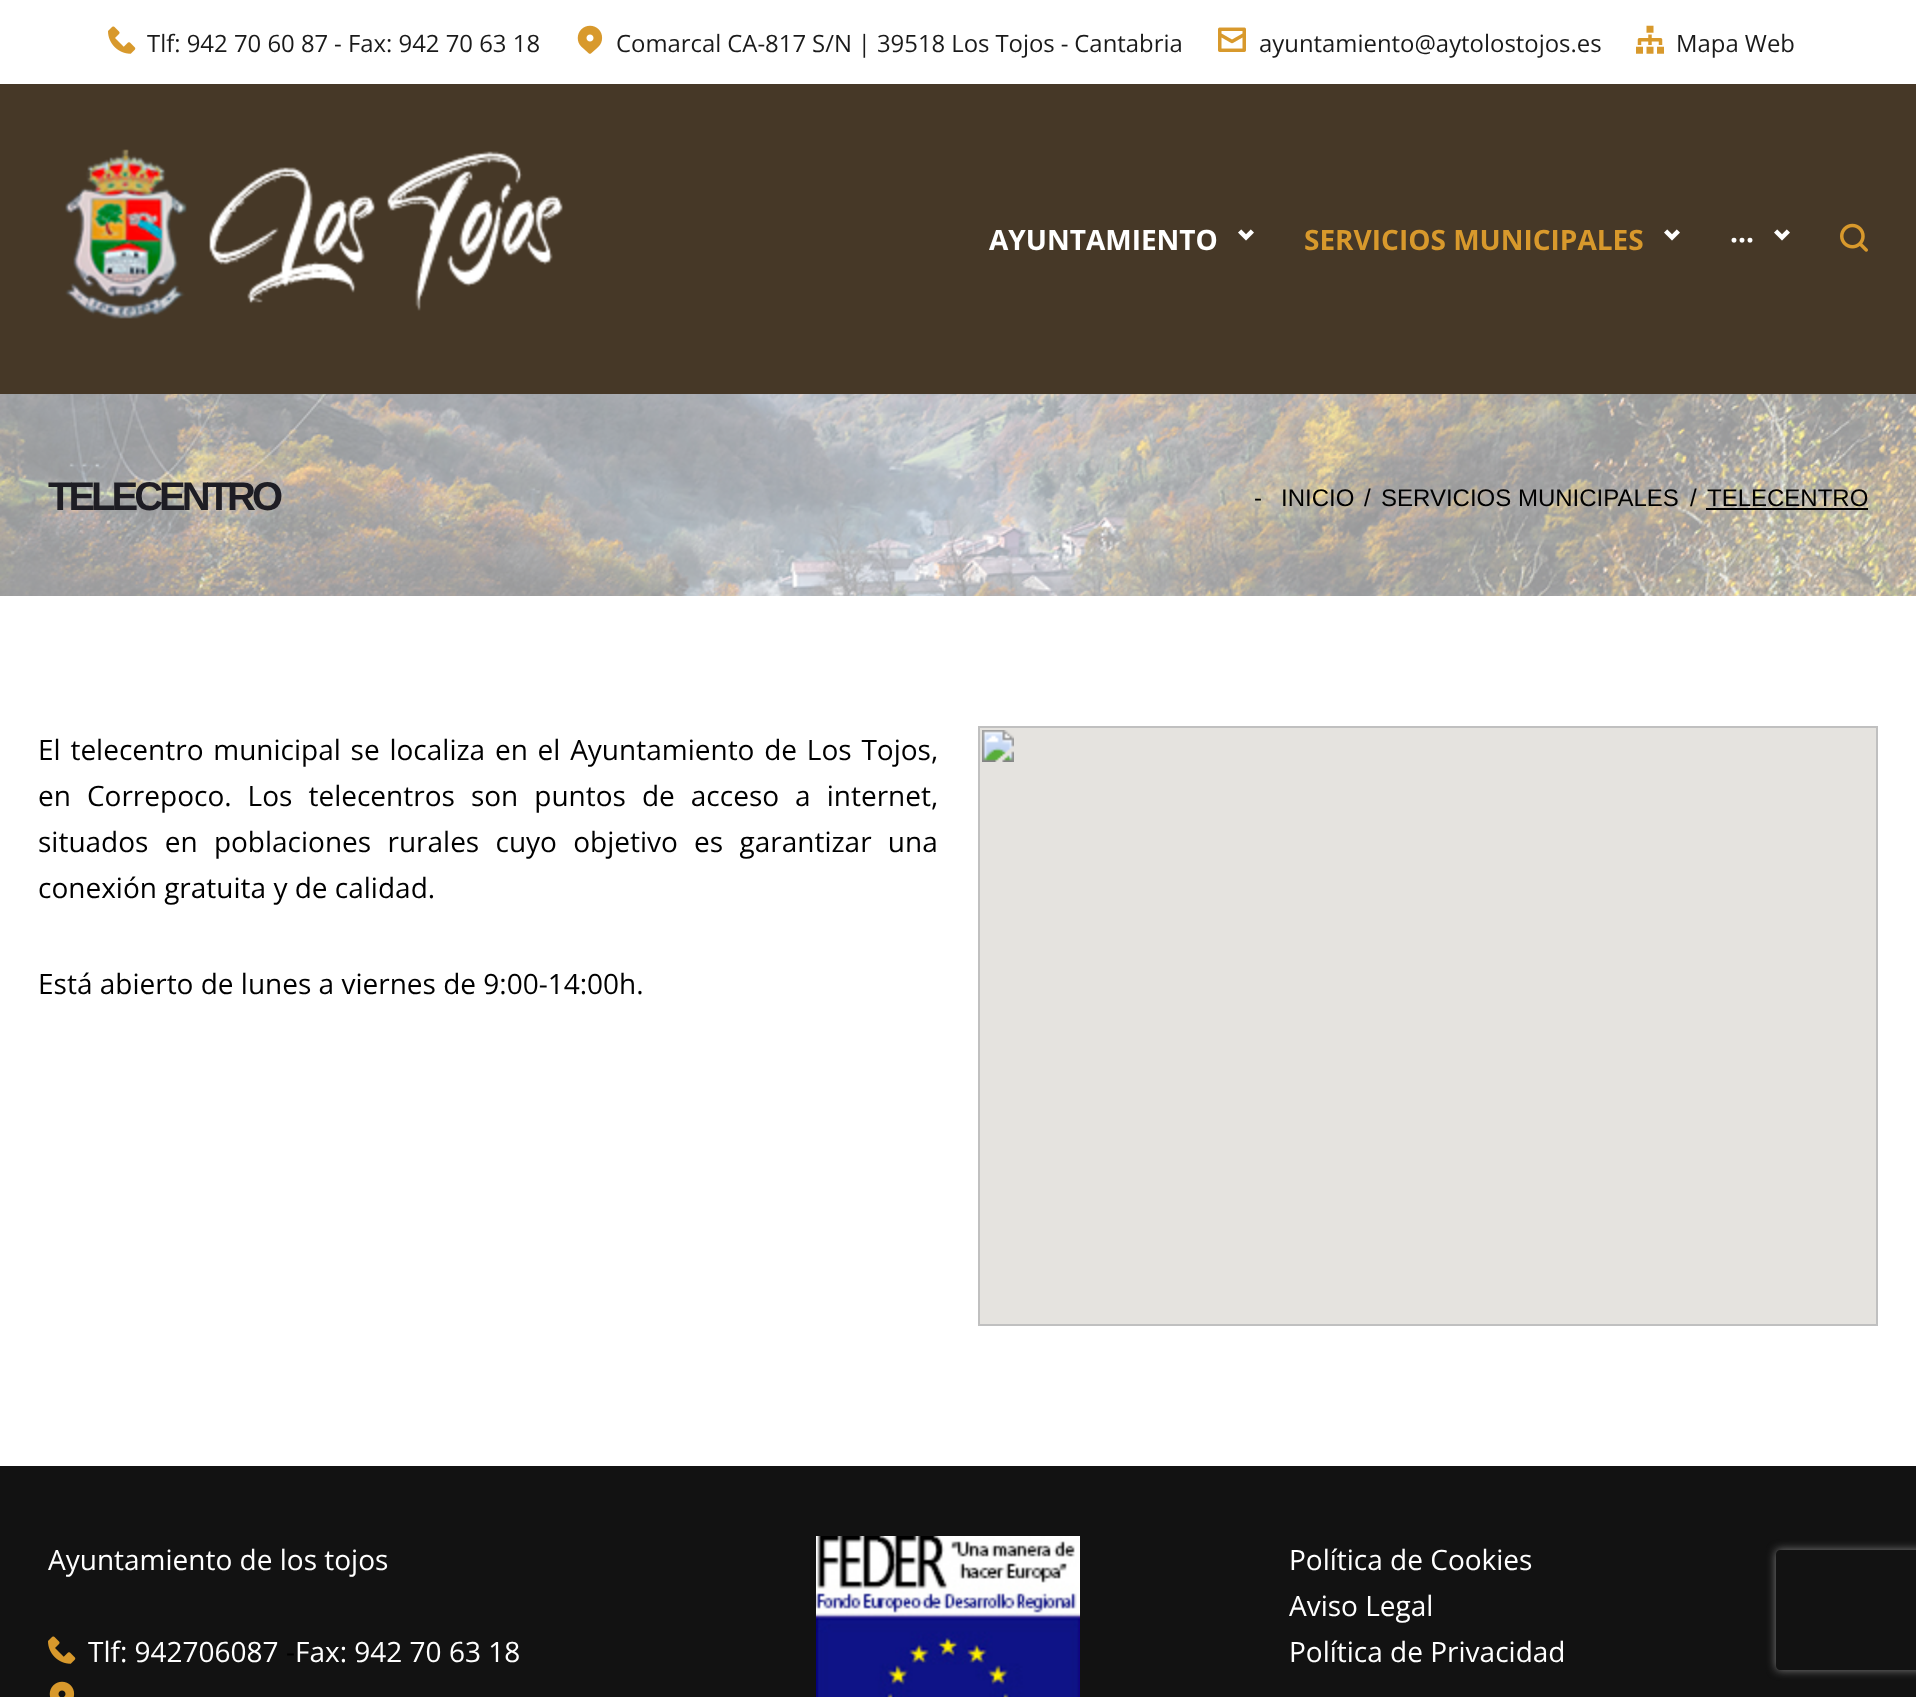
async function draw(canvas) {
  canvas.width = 1916;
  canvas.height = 1697;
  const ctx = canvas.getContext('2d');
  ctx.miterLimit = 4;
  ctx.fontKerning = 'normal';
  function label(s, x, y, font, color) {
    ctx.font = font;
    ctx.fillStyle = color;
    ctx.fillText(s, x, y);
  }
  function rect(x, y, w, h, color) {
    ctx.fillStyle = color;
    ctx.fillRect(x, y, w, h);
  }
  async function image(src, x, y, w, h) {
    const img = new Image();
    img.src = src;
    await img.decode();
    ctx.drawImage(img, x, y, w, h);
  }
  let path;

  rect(0, 0, 1916, 1697, '#fff');
  await image('assets/img1.png', 108, 26, 28, 28);
  label('Tlf: 942 70 60 87', 147, 52, '23.9px Open Sans', '#1a1a1a');
  label('- Fax: 942 70 63 18', 334, 52, '23.9px Open Sans', '#1a1a1a');
  await image('assets/img2.png', 577, 25, 26, 29);
  ctx.wordSpacing = '-0.25px';
  label('Comarcal CA-817 S/N | 39518 Los Tojos - Cantabria', 616, 52, '23.9px Open Sans', '#1a1a1a');
  await image('assets/img3.png', 1218, 27, 28, 25);
  ctx.wordSpacing = '0px';
  label('ayuntamiento@aytolostojos.es', 1259, 52, '23.9px Open Sans', '#1a1a1a');
  await image('assets/img4.png', 1636, 25, 28, 29);
  label('Mapa Web', 1676, 52, '23.9px Open Sans', '#1a1a1a');
  rect(0, 84, 1916, 310, '#463827');
  await image('assets/img5.png', 65, 149, 498, 170);
  label('AYUNTAMIENTO', 989, 250, 'bold 28px Open Sans', '#fff');
  await image('assets/img6.png', 1238, 229, 16, 12);
  label('SERVICIOS MUNICIPALES', 1304, 250, 'bold 28px Open Sans', '#d8992c');
  await image('assets/img6.png', 1664, 229, 16, 12);
  label('···', 1730, 250, 'bold 28px Open Sans', '#fff');
  await image('assets/img6.png', 1774, 229, 16, 12);
  await image('assets/img7.png', 1840, 223, 28, 29);
  await image('assets/img8.png', 0, 394, 1916, 202);
  ctx.letterSpacing = '-4px';
  label('TELECENTRO', 48, 510, 'bold 40px Liberation Sans', '#1e1d24');
  ctx.letterSpacing = '0px';
  label('-', 1254, 506, '24px Liberation Sans', '#000');
  label('INICIO', 1281, 506, '24px Liberation Sans', '#000');
  label('/', 1364, 506, '24px Liberation Sans', '#000');
  label('SERVICIOS MUNICIPALES', 1381, 506, '24px Liberation Sans', '#000');
  label('/', 1690, 506, '24px Liberation Sans', '#000');
  label('TELECENTRO', 1707, 506, '24px Liberation Sans', '#000');
  rect(1706, 508, 162, 2, '#000');
  ctx.wordSpacing = '2.5px';
  label('El telecentro municipal se localiza en el Ayuntamiento de Los Tojos,', 38, 760, '28px Open Sans', '#000');
  ctx.wordSpacing = '8.75px';
  label('en Correpoco. Los telecentros son puntos de acceso a internet,', 38, 806, '28px Open Sans', '#000');
  ctx.wordSpacing = '9px';
  label('situados en poblaciones rurales cuyo objetivo es garantizar una', 38, 852, '28px Open Sans', '#000');
  ctx.wordSpacing = '0px';
  label('conexión gratuita y de calidad.', 38, 898, '28px Open Sans', '#000');
  label('Está abierto de lunes a viernes de 9:00-14:00h.', 38, 994, '28px Open Sans', '#000');
  await image('assets/img9.png', 978, 726, 900, 600);
  rect(0, 1466, 1916, 231, '#121212');
  label('Ayuntamiento de los tojos', 48, 1570, '28px Open Sans', '#fff');
  await image('assets/img10.png', 48, 1636, 28, 28);
  label('Tlf: 942706087', 88, 1662, '28px Open Sans', '#fff');
  label('-', 286, 1662, '28px Open Sans', '#000');
  label('Fax: 942 70 63 18', 295, 1662, '28px Open Sans', '#fff');
  await image('assets/img11.png', 49, 1681, 26, 16);
  await image('assets/img12.png', 816, 1536, 264, 161);
  label('Política de Cookies', 1289, 1570, '28px Open Sans', '#fff');
  label('Aviso Legal', 1289, 1616, '28px Open Sans', '#fff');
  label('Política de Privacidad', 1289, 1662, '28px Open Sans', '#fff');
  ctx.save();
  path = new Path2D('M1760 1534H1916V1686H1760ZM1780 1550H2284C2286 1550 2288 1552 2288 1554V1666C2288 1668 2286 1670 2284 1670H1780C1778 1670 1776 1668 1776 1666V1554C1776 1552 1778 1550 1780 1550Z');
  ctx.clip(path, 'evenodd');
  ctx.fillStyle = '#808080';
  ctx.filter = 'blur(5px)';
  ctx.beginPath();
  ctx.roundRect(1776, 1550, 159, 120, 4);
  ctx.fill();
  ctx.filter = 'none';
  ctx.restore();
}

draw(document.querySelector('canvas'));
